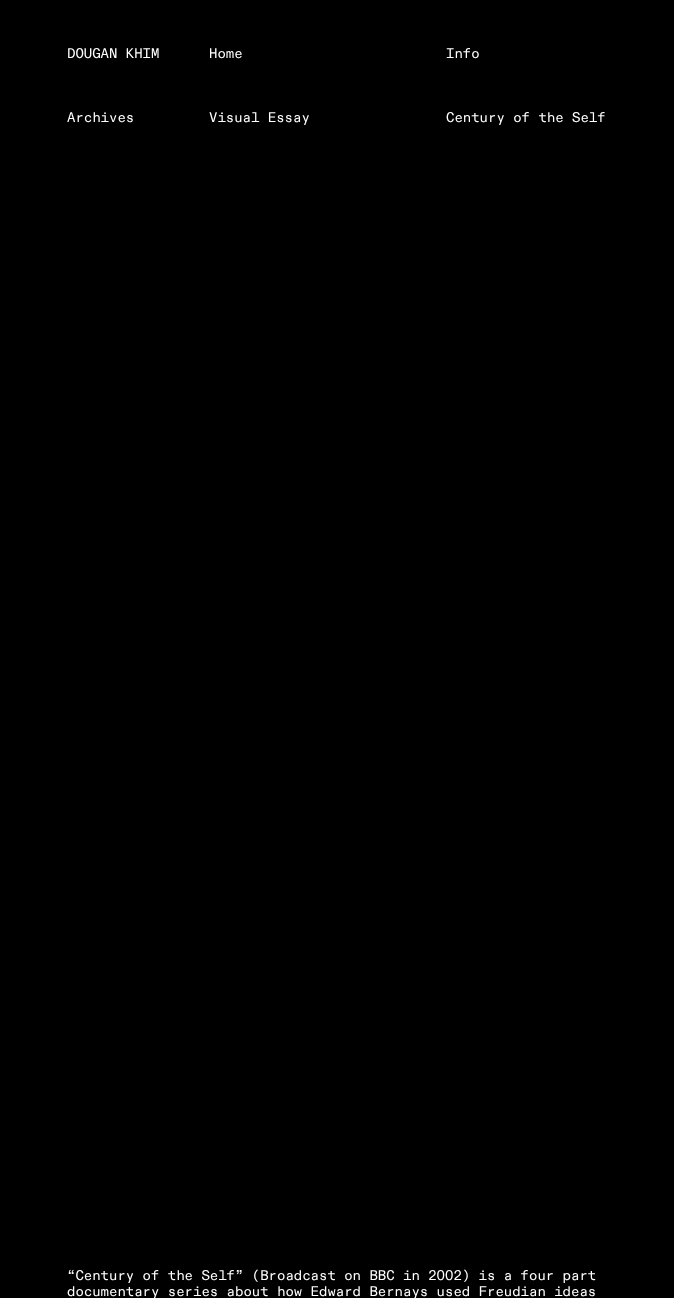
async function draw(canvas) {
  canvas.width = 674;
  canvas.height = 1298;
  const ctx = canvas.getContext('2d');
  ctx.miterLimit = 4;
  ctx.fontKerning = 'normal';
  function label(s, x, y, font, color) {
    ctx.font = font;
    ctx.fillStyle = color;
    ctx.fillText(s, x, y);
  }
  function rect(x, y, w, h, color) {
    ctx.fillStyle = color;
    ctx.fillRect(x, y, w, h);
  }

  rect(0, 0, 674, 1298, '#000');
  label('DOUGAN KHIM', 67, 58, '14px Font', '#fff');
  label('Home', 209, 58, '14px Font', '#fff');
  label('Info', 446, 58, '14px Font', '#fff');
  label('Archives', 67, 122, '14px Font', '#fff');
  label('Visual Essay', 209, 122, '14px Font', '#fff');
  label('Century of the Self', 446, 122, '14px Font', '#fff');
  label('“Century of the Self” (Broadcast on BBC in 2002) is a four part', 67, 1280, '14px Font', '#fff');
  label('documentary series about how Edward Bernays used Freudian ideas', 67, 1296, '14px Font', '#fff');
}

draw(document.querySelector('canvas'));
